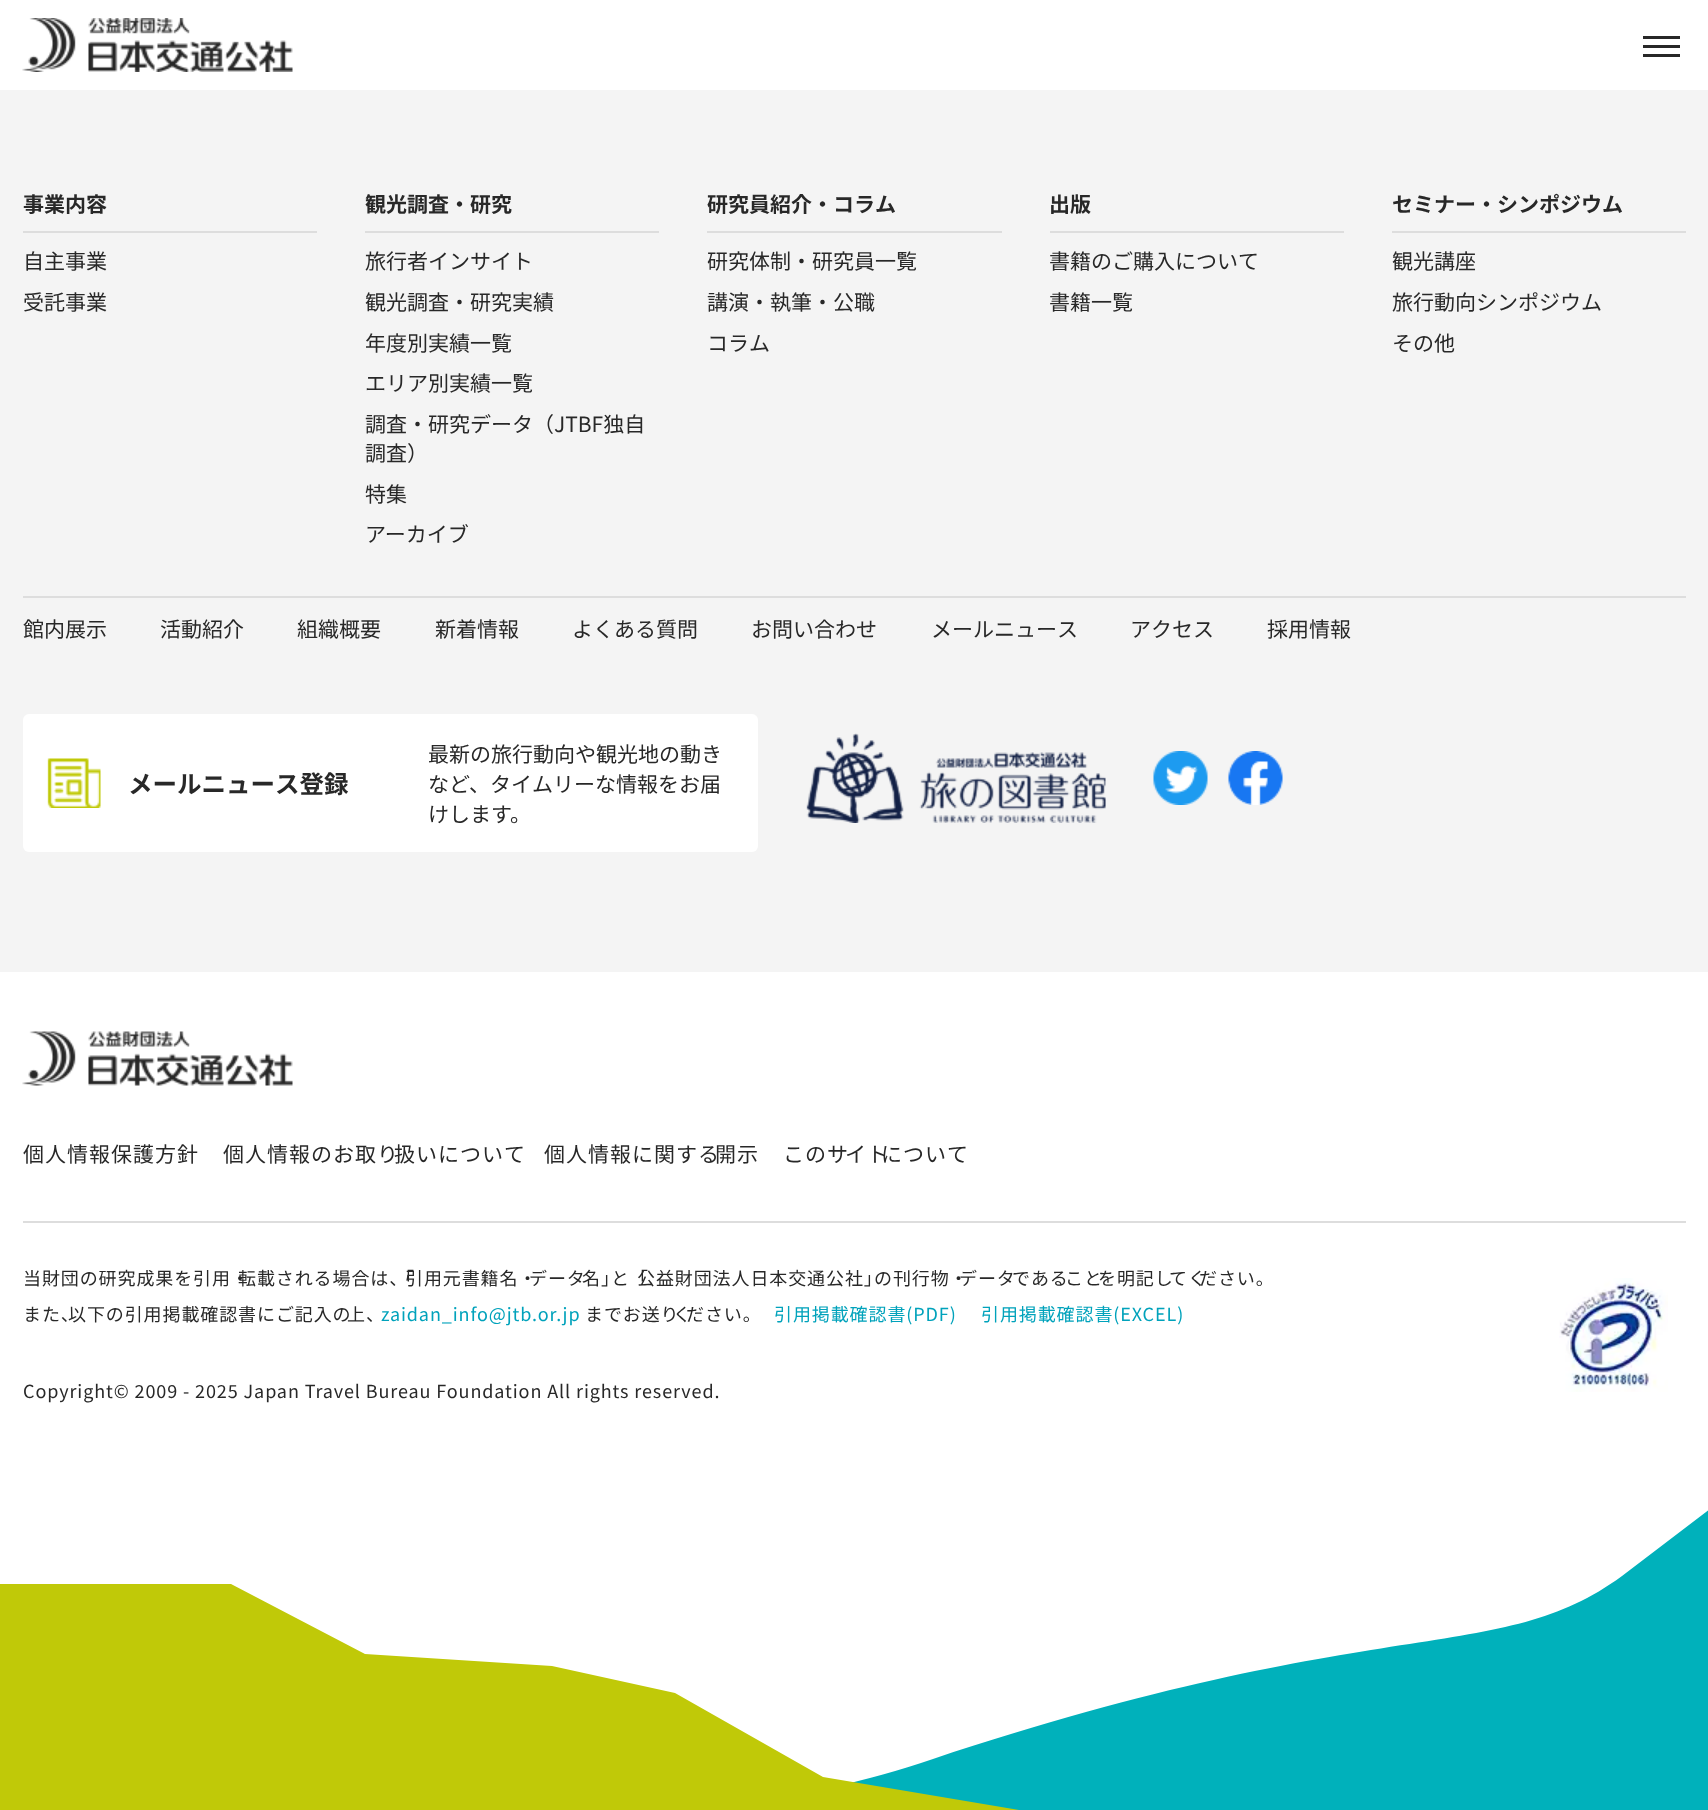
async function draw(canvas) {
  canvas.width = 1708;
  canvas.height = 1810;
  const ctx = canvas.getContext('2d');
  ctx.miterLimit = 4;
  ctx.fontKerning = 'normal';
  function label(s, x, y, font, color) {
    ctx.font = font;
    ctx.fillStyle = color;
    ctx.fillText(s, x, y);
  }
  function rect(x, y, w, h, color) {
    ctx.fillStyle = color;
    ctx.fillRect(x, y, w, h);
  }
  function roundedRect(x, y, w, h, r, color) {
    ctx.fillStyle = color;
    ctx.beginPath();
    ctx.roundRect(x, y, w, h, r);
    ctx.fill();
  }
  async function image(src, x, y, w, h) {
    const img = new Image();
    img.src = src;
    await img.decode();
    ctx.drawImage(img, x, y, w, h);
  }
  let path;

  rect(0, 0, 1708, 1810, '#fff');
  await image('assets/img1.png', 22, 18, 271, 54);
  rect(1643, 36, 37, 3, '#282828');
  rect(1643, 45, 37, 3, '#282828');
  rect(1643, 54, 37, 3, '#282828');
  rect(0, 90, 1708, 882, '#f4f4f4');
  rect(23, 231, 294, 2, '#ddd');
  label('事業内容', 23, 212, 'bold 21px Noto Sans JP', '#282828');
  label('自主事業', 23, 269, '21px Noto Sans JP', '#282828');
  label('受託事業', 23, 310, '21px Noto Sans JP', '#282828');
  rect(365, 231, 294, 2, '#ddd');
  label('観光調査・研究', 365, 212, 'bold 21px Noto Sans JP', '#282828');
  label('旅行者インサイト', 365, 269, '21px Noto Sans JP', '#282828');
  label('観光調査・研究実績', 365, 310, '21px Noto Sans JP', '#282828');
  label('年度別実績一覧', 365, 351, '21px Noto Sans JP', '#282828');
  label('エリア別実績一覧', 365, 391, '21px Noto Sans JP', '#282828');
  label('調査・研究データ（JTBF独自', 365, 432, '21px Noto Sans JP', '#282828');
  label('調査）', 365, 461, '21px Noto Sans JP', '#282828');
  label('特集', 365, 502, '21px Noto Sans JP', '#282828');
  label('アーカイブ', 365, 542, '21px Noto Sans JP', '#282828');
  rect(707, 231, 295, 2, '#ddd');
  label('研究員紹介・コラム', 707, 212, 'bold 21px Noto Sans JP', '#282828');
  label('研究体制・研究員一覧', 707, 269, '21px Noto Sans JP', '#282828');
  label('講演・執筆・公職', 707, 310, '21px Noto Sans JP', '#282828');
  label('コラム', 707, 351, '21px Noto Sans JP', '#282828');
  rect(1050, 231, 294, 2, '#ddd');
  label('出版', 1049, 212, 'bold 21px Noto Sans JP', '#282828');
  label('書籍のご購入について', 1049, 269, '21px Noto Sans JP', '#282828');
  label('書籍一覧', 1049, 310, '21px Noto Sans JP', '#282828');
  rect(1392, 231, 294, 2, '#ddd');
  label('セミナー・シンポジウム', 1392, 212, 'bold 21px Noto Sans JP', '#282828');
  label('観光講座', 1392, 269, '21px Noto Sans JP', '#282828');
  label('旅行動向シンポジウム', 1392, 310, '21px Noto Sans JP', '#282828');
  label('その他', 1392, 351, '21px Noto Sans JP', '#282828');
  rect(23, 596, 1663, 2, '#ddd');
  label('館内展示', 23, 637, '21px Noto Sans JP', '#282828');
  label('活動紹介', 160, 637, '21px Noto Sans JP', '#282828');
  label('組織概要', 297, 637, '21px Noto Sans JP', '#282828');
  label('新着情報', 435, 637, '21px Noto Sans JP', '#282828');
  label('よくある質問', 572, 637, '21px Noto Sans JP', '#282828');
  label('お問い合わせ', 751, 637, '21px Noto Sans JP', '#282828');
  label('メールニュース', 931, 637, '21px Noto Sans JP', '#282828');
  label('アクセス', 1130, 637, '21px Noto Sans JP', '#282828');
  label('採用情報', 1267, 637, '21px Noto Sans JP', '#282828');
  roundedRect(23, 714, 735, 138, 6, '#fff');
  await image('assets/img2.png', 47, 758, 54, 50);
  label('メールニュース登録', 128, 793, 'bold 24.5px Noto Sans JP', '#282828');
  label('最新の旅行動向や観光地の動き', 428, 762, '21px Noto Sans JP', '#282828');
  label('など、タイムリーな情報をお届', 428, 792, '21px Noto Sans JP', '#282828');
  label('けします。', 428, 822, '21px Noto Sans JP', '#282828');
  await image('assets/img3.png', 806, 733, 300, 90);
  await image('assets/img4.png', 1153, 751, 55, 54);
  await image('assets/img5.png', 1228, 751, 55, 54);
  await image('assets/img6.png', 22, 1031, 271, 55);
  ctx.letterSpacing = '1px';
  label('個人情報保護方針', 23, 1162, '21px Noto Sans JP', '#282828');
  label('個人情報のお取り', 223, 1162, '21px Noto Sans JP', '#282828');
  label('扱いについて', 394, 1162, '21px Noto Sans JP', '#282828');
  label('個人情報に関する', 544, 1162, '21px Noto Sans JP', '#282828');
  label('開示', 715, 1162, '21px Noto Sans JP', '#282828');
  label('このサ', 783, 1162, '21px Noto Sans JP', '#282828');
  label('イト', 845, 1162, '21px Noto Sans JP', '#282828');
  label('について', 881, 1162, '21px Noto Sans JP', '#282828');
  rect(23, 1221, 1663, 2, '#ddd');
  ctx.letterSpacing = '0.9px';
  label('当財団の研究成果を引用・', 23, 1285, '18px Noto Sans JP', '#282828');
  label('転載される場合は、', 238, 1285, '18px Noto Sans JP', '#282828');
  label('「', 396, 1285, '18px Noto Sans JP', '#282828');
  label('引用元書籍名・', 405, 1285, '18px Noto Sans JP', '#282828');
  label('データ', 529, 1285, '18px Noto Sans JP', '#282828');
  label('名」', 582, 1285, '18px Noto Sans JP', '#282828');
  label('と「', 611, 1285, '18px Noto Sans JP', '#282828');
  label('公益財団法人日本交通公社」', 637, 1285, '18px Noto Sans JP', '#282828');
  label('の刊行物・', 874, 1285, '18px Noto Sans JP', '#282828');
  label('データ', 959, 1285, '18px Noto Sans JP', '#282828');
  label('である', 1012, 1285, '18px Noto Sans JP', '#282828');
  label('こと', 1065, 1285, '18px Noto Sans JP', '#282828');
  label('を明記し', 1098, 1285, '18px Noto Sans JP', '#282828');
  label('てく', 1169, 1285, '18px Noto Sans JP', '#282828');
  label('ださい。', 1199, 1285, '18px Noto Sans JP', '#282828');
  label('また、', 23, 1321, '18px Noto Sans JP', '#282828');
  label('以下の引用掲載確認書にご記入の', 68, 1321, '18px Noto Sans JP', '#282828');
  label('上、', 347, 1321, '18px Noto Sans JP', '#282828');
  label('zaidan_info@jtb.or.jp', 381, 1321, '18px Noto Sans JP', '#00a2bb');
  label('までお送り', 585, 1321, '18px Noto Sans JP', '#282828');
  label('く', 673, 1321, '18px Noto Sans JP', '#282828');
  label('ださい。', 686, 1321, '18px Noto Sans JP', '#282828');
  label('引用掲載確認書(PDF)', 774, 1321, '18px Noto Sans JP', '#00a2bb');
  label('引用掲載確認書(EXCEL)', 981, 1321, '18px Noto Sans JP', '#00a2bb');
  label('Copyright© 2009 - 2025 Japan Travel Bureau Foundation All rights reserved.', 23, 1398, '18px Noto Sans JP', '#282828');
  await image('assets/img7.png', 1559, 1278, 109, 114);
  ctx.fillStyle = '#00b1bb';
  path = new Path2D('M1622 1576C1498 1667 1385 1609 933 1759C796 1805 684 1810 684 1810H1708L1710 1509L1622 1576');
  ctx.fill(path, 'evenodd');
  ctx.fillStyle = '#c0c908';
  path = new Path2D('M0 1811V1584H231L365 1654L552 1666L675 1693L823 1777L1025 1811Z');
  ctx.fill(path, 'evenodd');
}

draw(document.querySelector('canvas'));
